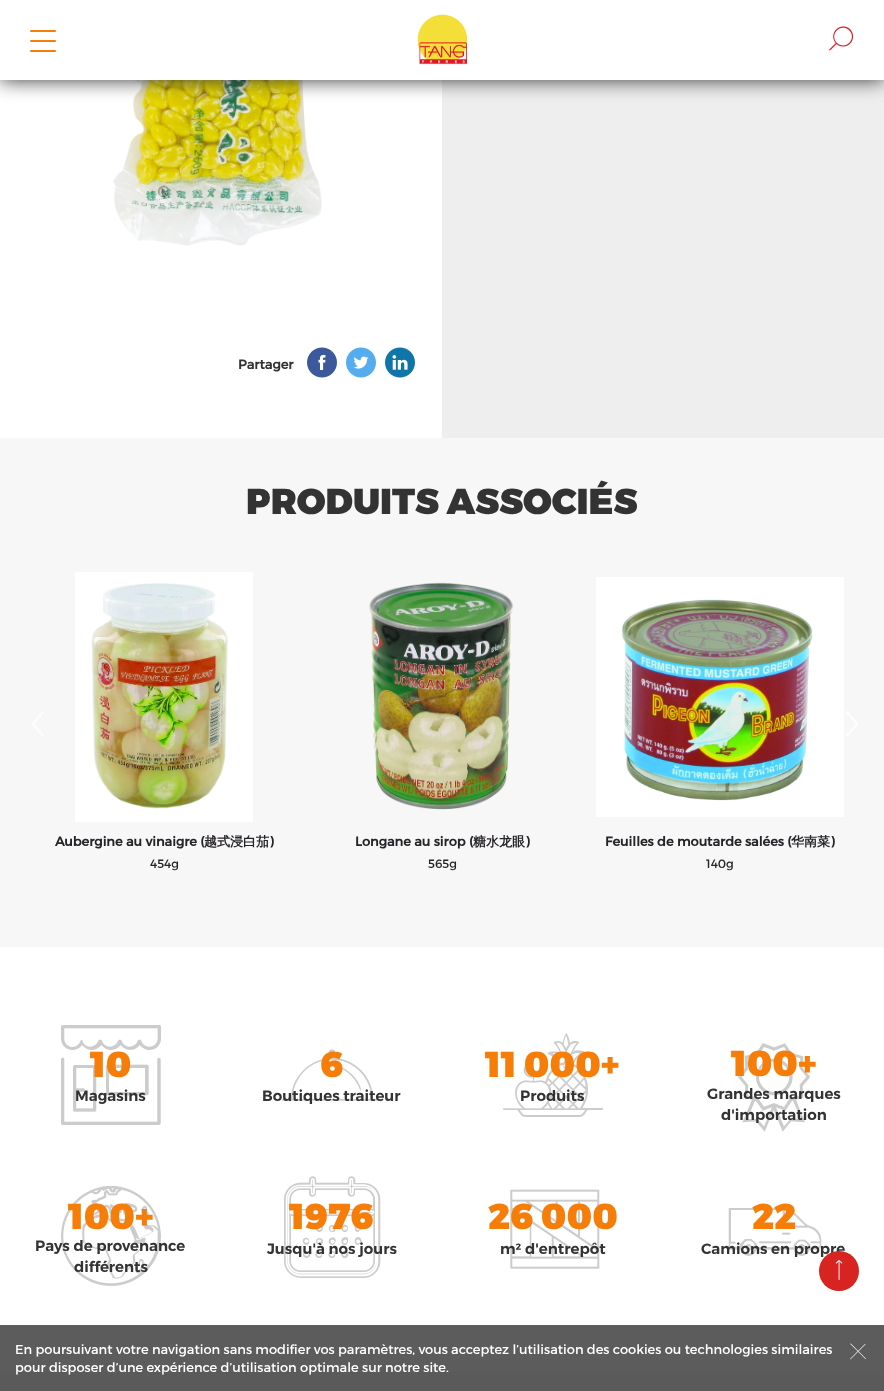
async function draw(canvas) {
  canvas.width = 884;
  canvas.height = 1391;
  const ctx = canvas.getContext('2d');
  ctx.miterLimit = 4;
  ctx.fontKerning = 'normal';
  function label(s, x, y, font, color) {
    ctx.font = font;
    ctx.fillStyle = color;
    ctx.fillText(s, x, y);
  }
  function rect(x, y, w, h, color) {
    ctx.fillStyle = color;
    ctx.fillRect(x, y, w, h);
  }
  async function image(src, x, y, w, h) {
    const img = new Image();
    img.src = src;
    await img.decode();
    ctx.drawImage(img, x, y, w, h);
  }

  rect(0, 0, 884, 1391, '#fff');
  rect(0, 1325, 884, 47, '#5c5c5c');
  await image('assets/img3.png', 113, 80, 209, 166);
  rect(442, 80, 442, 358, '#eee');
  ctx.fillStyle = '#333';
  ctx.filter = 'blur(10px)';
  ctx.beginPath();
  ctx.rect(0, 0, 884, 80);
  ctx.fill();
  ctx.filter = 'none';
  rect(0, 0, 884, 80, '#fff');
  await image('assets/img1.png', 417, 14, 51, 51);
  ctx.fillStyle = '#f57d08';
  ctx.beginPath();
  ctx.roundRect(30, 30, 13, 2, [1, 0, 0, 1]);
  ctx.fill();
  ctx.beginPath();
  ctx.roundRect(43, 30, 13, 2, [0, 1, 1, 0]);
  ctx.fill();
  ctx.beginPath();
  ctx.roundRect(30, 40, 13, 2, [1, 0, 0, 1]);
  ctx.fill();
  ctx.beginPath();
  ctx.roundRect(43, 40, 13, 2, [0, 1, 1, 0]);
  ctx.fill();
  ctx.beginPath();
  ctx.roundRect(30, 50, 13, 2, [1, 0, 0, 1]);
  ctx.fill();
  ctx.beginPath();
  ctx.roundRect(43, 50, 13, 2, [0, 1, 1, 0]);
  ctx.fill();
  await image('assets/img2.png', 829, 26, 25, 25);
  label('Partager', 238, 369, 'bold 13px Montserrat', '#333');
  await image('assets/img4.png', 307, 347, 30, 31);
  await image('assets/img5.png', 346, 347, 30, 31);
  await image('assets/img6.png', 385, 347, 30, 31);
  rect(0, 438, 884, 509, '#f7f7f7');
  label('PRODUITS ASSOCIÉS', 246, 514, '900 36px Montserrat', '#333');
  await image('assets/img7.png', 32, 711, 12, 26);
  await image('assets/img8.png', 846, 711, 12, 26);
  await image('assets/img9.png', 75, 572, 178, 250);
  label('Aubergine au vinaigre (', 55, 846, 'bold 13px Montserrat', '#272429');
  label('越式浸白茄', 204, 846, 'bold 13px WenQuanYi Zen Hei', '#272429');
  label(')', 269, 846, 'bold 13px Montserrat', '#272429');
  label('454g', 150, 868, '12px Montserrat', '#272429');
  await image('assets/img10.png', 369, 582, 144, 228);
  label('Longane au sirop (', 355, 846, 'bold 13px Montserrat', '#272429');
  label('糖水龙眼', 473, 846, 'bold 13px WenQuanYi Zen Hei', '#272429');
  label(')', 525, 846, 'bold 13px Montserrat', '#272429');
  label('565g', 428, 868, '12px Montserrat', '#272429');
  await image('assets/img11.png', 596, 577, 248, 240);
  label('Feuilles de moutarde salées (', 605, 846, 'bold 13px Montserrat', '#272429');
  label('华南菜', 791, 846, 'bold 13px WenQuanYi Zen Hei', '#272429');
  label(')', 830, 846, 'bold 13px Montserrat', '#272429');
  label('140g', 706, 868, '12px Montserrat', '#272429');
  await image('assets/img12.png', 61, 1025, 100, 100);
  label('10', 90, 1077, '900 36px Montserrat', '#f57d08');
  label('Magasins', 75, 1101, '600 15px Montserrat', '#333');
  await image('assets/img13.png', 282, 1049, 100, 52);
  label('6', 320, 1077, '900 36px Montserrat', '#f57d08');
  label('Boutiques traiteur', 262, 1101, '600 15px Montserrat', '#333');
  await image('assets/img14.png', 503, 1033, 101, 84);
  label('11 000+', 485, 1077, '900 36px Montserrat', '#f57d08');
  label('Produits', 520, 1101, '600 15px Montserrat', '#333');
  await image('assets/img15.png', 737, 1043, 73, 89);
  label('100+', 731, 1076, '900 36px Montserrat', '#f57d08');
  label('Grandes marques', 707, 1099, '600 15px Montserrat', '#333');
  label('d\'importation', 721, 1120, '600 15px Montserrat', '#333');
  await image('assets/img16.png', 61, 1186, 100, 100);
  label('100+', 68, 1229, '900 36px Montserrat', '#f57d08');
  label('Pays de provenance', 35, 1251, '600 15px Montserrat', '#333');
  label('différents', 74, 1272, '600 15px Montserrat', '#333');
  await image('assets/img17.png', 284, 1176, 97, 102);
  label('1976', 289, 1229, '900 36px Montserrat', '#f57d08');
  label('Jusqu\'à nos jours', 267, 1254, '600 15px Montserrat', '#333');
  await image('assets/img18.png', 510, 1189, 90, 80);
  label('26 000', 488, 1229, '900 36px Montserrat', '#f57d08');
  label('m² d\'entrepôt', 500, 1254, '600 15px Montserrat', '#333');
  await image('assets/img19.png', 728, 1208, 94, 48);
  label('22', 752, 1229, '900 36px Montserrat', '#f57d08');
  label('Camions en propre', 701, 1254, '600 15px Montserrat', '#333');
  rect(0, 1372, 884, 19, '#5a5a5a');
  ctx.fillStyle = '#d72421';
  ctx.beginPath();
  ctx.arc(839, 1271, 20, 0, 2 * Math.PI);
  ctx.fill();
  await image('assets/img20.png', 835, 1260, 8, 20);
  label('En poursuivant votre navigation sans modifier vos paramètres, vous acceptez l’utilisation des cookies ou technologies similaires', 15, 1354, '13px Montserrat', '#fff');
  label('pour disposer d’une expérience d’utilisation optimale sur notre site.', 15, 1372, '13px Montserrat', '#fff');
  await image('assets/img21.png', 850, 1343, 16, 17);
}

draw(document.querySelector('canvas'));
